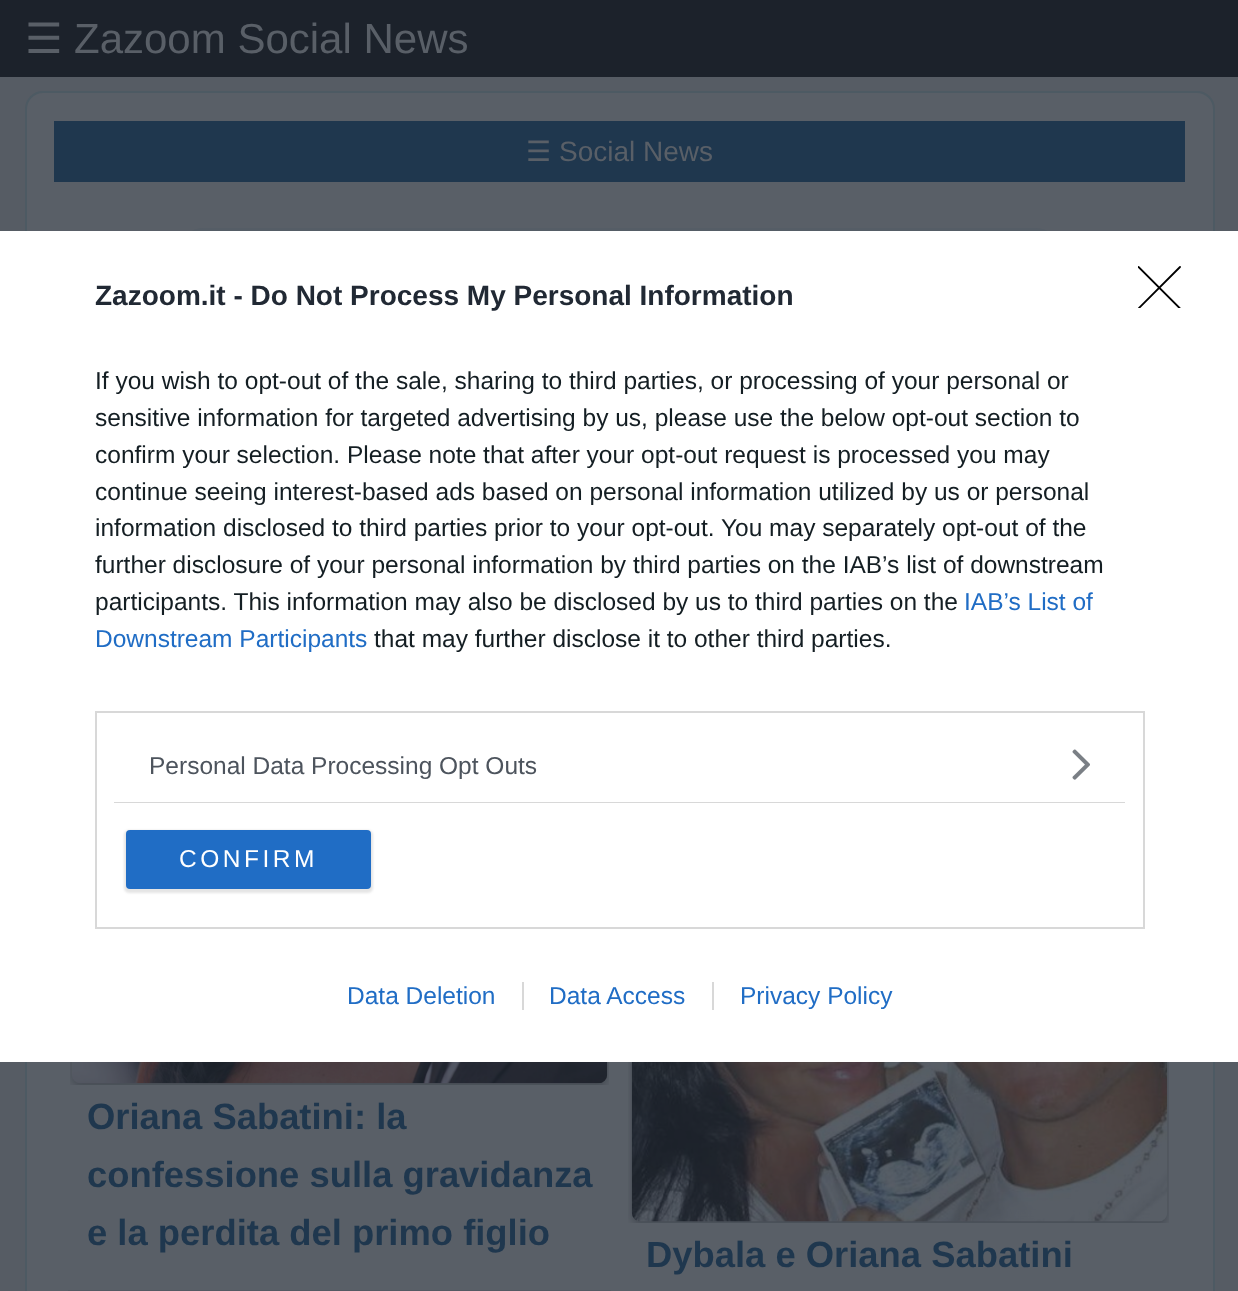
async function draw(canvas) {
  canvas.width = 1238;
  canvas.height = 1291;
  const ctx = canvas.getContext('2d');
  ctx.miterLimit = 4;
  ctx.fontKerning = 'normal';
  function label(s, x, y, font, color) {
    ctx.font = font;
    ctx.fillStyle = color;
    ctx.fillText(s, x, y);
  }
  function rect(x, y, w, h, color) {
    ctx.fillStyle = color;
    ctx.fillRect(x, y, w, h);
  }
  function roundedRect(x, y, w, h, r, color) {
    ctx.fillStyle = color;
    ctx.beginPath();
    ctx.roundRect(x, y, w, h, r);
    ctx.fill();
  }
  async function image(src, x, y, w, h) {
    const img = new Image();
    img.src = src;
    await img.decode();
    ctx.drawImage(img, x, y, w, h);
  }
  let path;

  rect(0, 0, 1238, 1291, '#565c64');
  rect(0, 0, 1238, 77, '#1c222b');
  label('☰', 25, 53, '42px DejaVu Sans', '#595f67');
  label('Zazoom Social News', 74, 53, '42px Liberation Sans', '#595f67');
  ctx.beginPath();
  ctx.roundRect(26, 92, 1188, 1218, 17);
  ctx.fill();
  ctx.strokeStyle = '#4d5a63';
  ctx.lineWidth = 2;
  ctx.stroke();
  rect(54, 121, 1131, 61, '#1f374e');
  label('☰', 526, 161, '28px DejaVu Sans', '#595f67');
  label('Social News', 559, 161, '28px Liberation Sans', '#595f67');
  roundedRect(182, 228, 875, 89, 21, '#555d66');
  await image('assets/img1.png', 70, 1062, 539, 23);
  label('Oriana Sabatini: la', 87, 1129, 'bold 36.4px Liberation Sans', '#1f374e');
  label('confessione sulla gravidanza', 87, 1187, 'bold 36.4px Liberation Sans', '#1f374e');
  label('e la perdita del primo figlio', 87, 1245, 'bold 36.4px Liberation Sans', '#1f374e');
  rect(68, 1290, 543, 1, '#545a63');
  await image('assets/img2.png', 628, 1062, 541, 161);
  label('Dybala e Oriana Sabatini', 646, 1267, 'bold 36.4px Liberation Sans', '#1f374e');
  rect(0, 231, 1238, 831, '#fff');
  label('Zazoom.it - Do Not Process My Personal Information', 95, 305, 'bold 28px Liberation Sans', '#212934');
  label('If you wish to opt-out of the sale, sharing to third parties, or processing of your personal or', 95, 389, '24.5px Liberation Sans', '#141e23');
  label('sensitive information for targeted advertising by us, please use the below opt-out section to', 95, 426, '24.5px Liberation Sans', '#141e23');
  label('confirm your selection. Please note that after your opt-out request is processed you may', 95, 463, '24.5px Liberation Sans', '#141e23');
  label('continue seeing interest-based ads based on personal information utilized by us or personal', 95, 500, '24.5px Liberation Sans', '#141e23');
  label('information disclosed to third parties prior to your opt-out. You may separately opt-out of the', 95, 536, '24.5px Liberation Sans', '#141e23');
  label('further disclosure of your personal information by third parties on the IAB’s list of downstream', 95, 573, '24.5px Liberation Sans', '#141e23');
  label('participants. This information may also be disclosed by us to third parties on the', 95, 610, '24.5px Liberation Sans', '#141e23');
  label('IAB’s List of', 964, 610, '24.5px Liberation Sans', '#206dc5');
  label('Downstream Participants', 95, 647, '24.5px Liberation Sans', '#206dc5');
  label('that may further disclose it to other third parties.', 374, 647, '24.5px Liberation Sans', '#141e23');
  ctx.strokeStyle = '#d8d8d8';
  ctx.strokeRect(96, 712, 1048, 216);
  rect(114, 802, 1011, 1, '#d8d8d8');
  label('Personal Data Processing Opt Outs', 149, 774, '24.5px Liberation Sans', '#4d545d');
  await image('assets/img3.png', 1072, 749, 18, 31);
  ctx.fillStyle = '#0000001a';
  ctx.filter = 'blur(1px)';
  ctx.beginPath();
  ctx.roundRect(124, 830, 249, 63, 5);
  ctx.fill();
  ctx.filter = 'none';
  roundedRect(126, 830, 245, 59, 4, '#206dc5');
  ctx.letterSpacing = '3.5px';
  label('CONFIRM', 179, 867, '24.5px Liberation Sans', '#fff');
  ctx.save();
  ctx.beginPath();
  ctx.rect(1138, 266, 43, 42);
  ctx.clip();
  path = new Path2D('M1138.5 267L1180 308.5M1180 267L1138.5 308.5');
  ctx.strokeStyle = '#000';
  ctx.lineWidth = 1.8;
  ctx.lineCap = 'round';
  ctx.lineJoin = 'round';
  ctx.stroke(path);
  ctx.restore();
  ctx.letterSpacing = '0px';
  label('Data Deletion', 347, 1004, '24.5px Liberation Sans', '#206dc5');
  label('Data Access', 549, 1004, '24.5px Liberation Sans', '#206dc5');
  rect(522, 982, 2, 28, '#d8d8d8');
  label('Privacy Policy', 740, 1004, '24.5px Liberation Sans', '#206dc5');
  rect(712, 982, 2, 28, '#d8d8d8');
}

draw(document.querySelector('canvas'));
